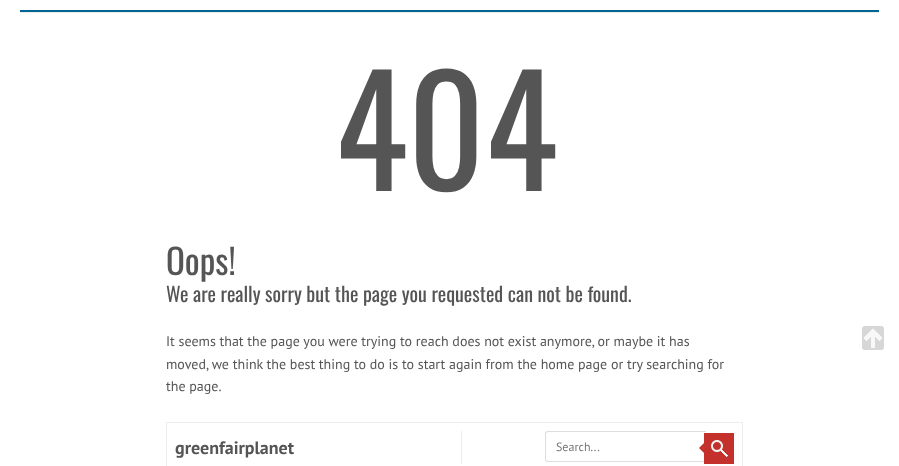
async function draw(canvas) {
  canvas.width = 899;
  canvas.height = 466;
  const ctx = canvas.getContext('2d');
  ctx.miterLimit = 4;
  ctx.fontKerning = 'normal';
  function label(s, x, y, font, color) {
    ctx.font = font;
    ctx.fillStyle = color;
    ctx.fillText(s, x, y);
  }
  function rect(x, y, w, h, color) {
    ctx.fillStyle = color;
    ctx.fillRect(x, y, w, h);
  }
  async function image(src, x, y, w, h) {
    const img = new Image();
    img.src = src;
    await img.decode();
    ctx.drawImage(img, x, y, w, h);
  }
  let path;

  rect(0, 0, 899, 466, '#fff');
  rect(20, 12, 859, 1, '#ededed');
  rect(20, 10, 859, 2, '#006592');
  label('404', 335, 191, '150px Oswald', '#555');
  label('Oops!', 166, 275, '35px Oswald', '#555');
  label('We are really sorry but the page you requested can not be found.', 166, 302, '20px Oswald', '#555');
  label('It seems that the page you were trying to reach does not exist anymore, or maybe it has', 166, 346, '14px PT Sans', '#555');
  label('moved, we think the best thing to do is to start again from the home page or try searching for', 166, 369, '14px PT Sans', '#555');
  label('the page.', 166, 391, '14px PT Sans', '#555');
  ctx.strokeStyle = '#ededed';
  ctx.strokeRect(166.5, 422.5, 576, 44);
  label('greenfairplanet', 175, 454, 'bold 18px PT Sans', '#555');
  rect(461, 431, 1, 33, '#ededed');
  ctx.fillStyle = '#ddd';
  path = new Path2D('M548 431H706V462H548C546 462 545 461 545 459V434C545 432 546 431 548 431ZM548 432H706V461H548C547 461 546 460 546 459V434C546 433 547 432 548 432Z');
  ctx.fill(path, 'evenodd');
  label('Search...', 556, 451, '12px PT Sans', '#757575');
  rect(704, 433, 30, 31, '#c4302b');
  await image('assets/img1.png', 711, 440, 17, 17);
  path = new Path2D('M704 443V453L699 448Z');
  ctx.fill(path);
  await image('assets/img2.png', 862, 326, 22, 24);
}

draw(document.querySelector('canvas'));
